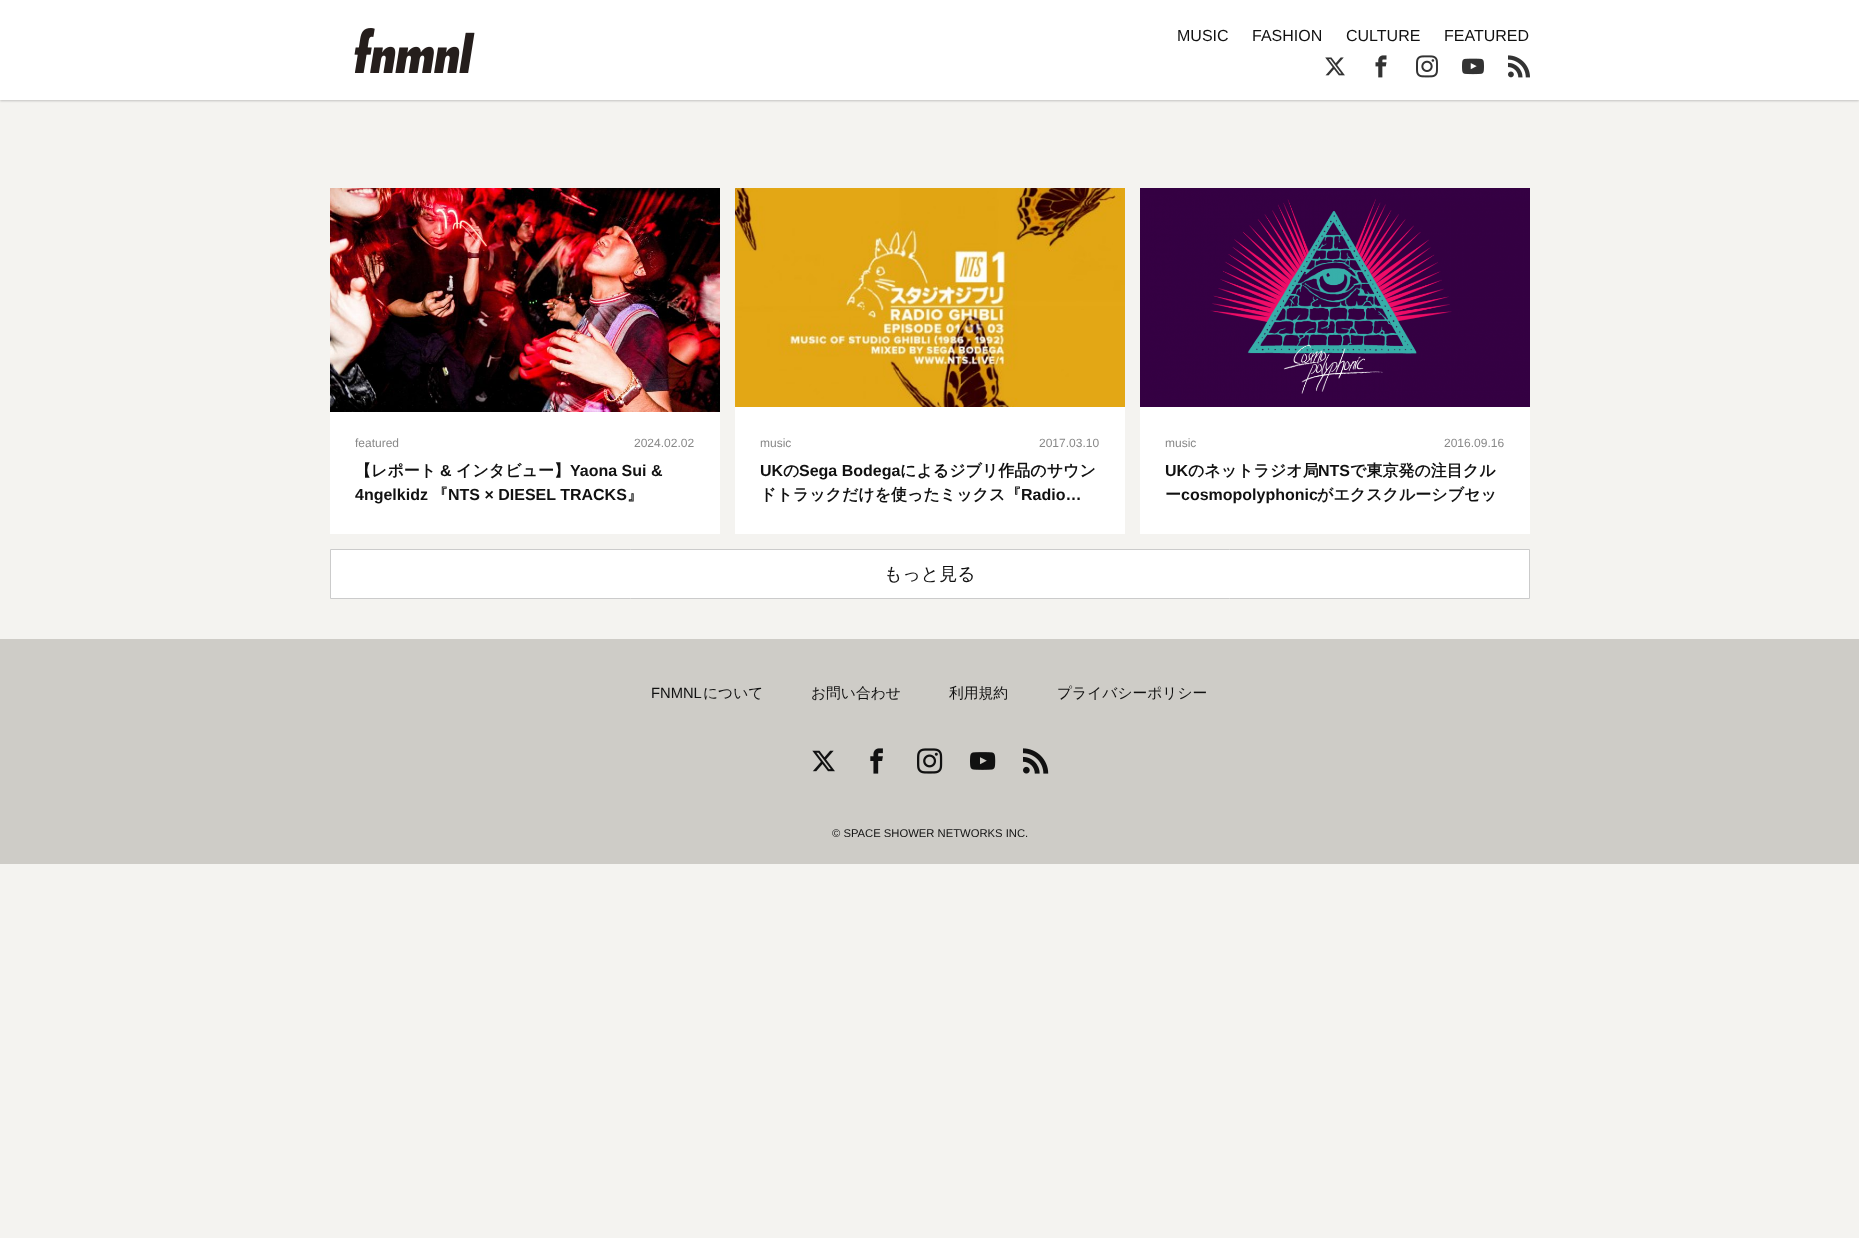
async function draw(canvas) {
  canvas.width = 1859;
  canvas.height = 1238;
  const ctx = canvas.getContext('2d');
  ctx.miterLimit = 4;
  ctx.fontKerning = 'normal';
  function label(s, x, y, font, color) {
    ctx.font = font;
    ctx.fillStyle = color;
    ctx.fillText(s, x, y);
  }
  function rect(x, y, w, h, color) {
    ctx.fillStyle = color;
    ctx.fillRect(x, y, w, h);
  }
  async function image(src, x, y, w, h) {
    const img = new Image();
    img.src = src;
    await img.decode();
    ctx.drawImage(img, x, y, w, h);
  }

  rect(0, 0, 1859, 1238, '#f4f3f0');
  ctx.fillStyle = '#00000033';
  ctx.filter = 'blur(1px)';
  ctx.beginPath();
  ctx.rect(0, 1, 1859, 100);
  ctx.fill();
  ctx.filter = 'none';
  rect(0, 0, 1859, 100, '#fff');
  await image('assets/img1.png', 354, 28, 121, 45);
  label('MUSIC', 1177, 41, '16px Liberation Sans', '#111');
  label('FASHION', 1252, 41, '16px Liberation Sans', '#111');
  label('CULTURE', 1346, 41, '16px Liberation Sans', '#111');
  label('FEATURED', 1444, 41, '16px Liberation Sans', '#111');
  await image('assets/img2.png', 1325, 57, 20, 19);
  await image('assets/img3.png', 1375, 55, 12, 23);
  await image('assets/img4.png', 1416, 55, 22, 23);
  await image('assets/img5.png', 1462, 58, 22, 17);
  await image('assets/img6.png', 1508, 55, 22, 23);
  rect(330, 412, 390, 122, '#fff');
  await image('assets/img7.png', 330, 188, 390, 224);
  label('featured', 355, 447, '12px Liberation Sans', '#888');
  label('2024.02.02', 634, 447, '12px Liberation Sans', '#888');
  label('【レポート', 355, 476, 'bold 16px WenQuanYi Zen Hei', '#111');
  label('&', 440, 476, 'bold 16px Liberation Sans', '#111');
  label('インタビュー】', 456, 476, 'bold 16px WenQuanYi Zen Hei', '#111');
  label('Yaona Sui &', 570, 476, 'bold 16px Liberation Sans', '#111');
  label('4ngelkidz', 355, 500, 'bold 16px Liberation Sans', '#111');
  label('『', 432, 500, 'bold 16px WenQuanYi Zen Hei', '#111');
  label('NTS × DIESEL TRACKS', 448, 500, 'bold 16px Liberation Sans', '#111');
  label('』', 627, 500, 'bold 16px WenQuanYi Zen Hei', '#111');
  rect(735, 407, 390, 127, '#fff');
  await image('assets/img8.png', 735, 188, 390, 219);
  label('music', 760, 447, '12px Liberation Sans', '#888');
  label('2017.03.10', 1039, 447, '12px Liberation Sans', '#888');
  label('UK', 760, 476, 'bold 16px Liberation Sans', '#111');
  label('の', 783, 476, 'bold 16px WenQuanYi Zen Hei', '#111');
  label('Sega Bodega', 799, 476, 'bold 16px Liberation Sans', '#111');
  label('によるジブリ作品のサウン', 900, 476, 'bold 16px WenQuanYi Zen Hei', '#111');
  label('ドトラックだけを使ったミックス『', 760, 500, 'bold 16px WenQuanYi Zen Hei', '#111');
  label('Radio…', 1021, 500, 'bold 16px Liberation Sans', '#111');
  rect(1140, 407, 390, 127, '#fff');
  await image('assets/img9.png', 1140, 188, 390, 219);
  label('music', 1165, 447, '12px Liberation Sans', '#888');
  label('2016.09.16', 1444, 447, '12px Liberation Sans', '#888');
  label('UK', 1165, 476, 'bold 16px Liberation Sans', '#111');
  label('のネットラジオ局', 1188, 476, 'bold 16px WenQuanYi Zen Hei', '#111');
  label('NTS', 1318, 476, 'bold 16px Liberation Sans', '#111');
  label('で東京発の注目クル', 1350, 476, 'bold 16px WenQuanYi Zen Hei', '#111');
  label('ー', 1165, 500, 'bold 16px WenQuanYi Zen Hei', '#111');
  label('cosmopolyphonic', 1181, 500, 'bold 16px Liberation Sans', '#111');
  label('がエクスクルーシブセッ', 1317, 500, 'bold 16px WenQuanYi Zen Hei', '#111');
  ctx.fillStyle = '#fff';
  ctx.beginPath();
  ctx.rect(330.5, 549.5, 1199, 49);
  ctx.fill();
  ctx.strokeStyle = '#cbcbcb';
  ctx.stroke();
  label('もっと見る', 884, 580, '500 18px WenQuanYi Zen Hei', '#111');
  rect(0, 639, 1859, 225, '#ceccc7');
  label('FNMNL', 651, 698, '14.75px Liberation Sans', '#111');
  label('について', 703, 698, '500 14.75px WenQuanYi Zen Hei', '#111');
  label('お問い合わせ', 811, 698, '500 14.75px WenQuanYi Zen Hei', '#111');
  label('利用規約', 949, 698, '500 14.75px WenQuanYi Zen Hei', '#111');
  label('プライバシーポリシー', 1057, 698, '500 14.75px WenQuanYi Zen Hei', '#111');
  await image('assets/img10.png', 812, 750, 23, 22);
  await image('assets/img11.png', 870, 748, 13, 26);
  await image('assets/img12.png', 917, 748, 26, 26);
  await image('assets/img13.png', 970, 752, 26, 18);
  await image('assets/img14.png', 1023, 748, 26, 26);
  label('© SPACE SHOWER NETWORKS INC.', 832, 837, '11.25px Liberation Sans', '#111');
}

draw(document.querySelector('canvas'));
